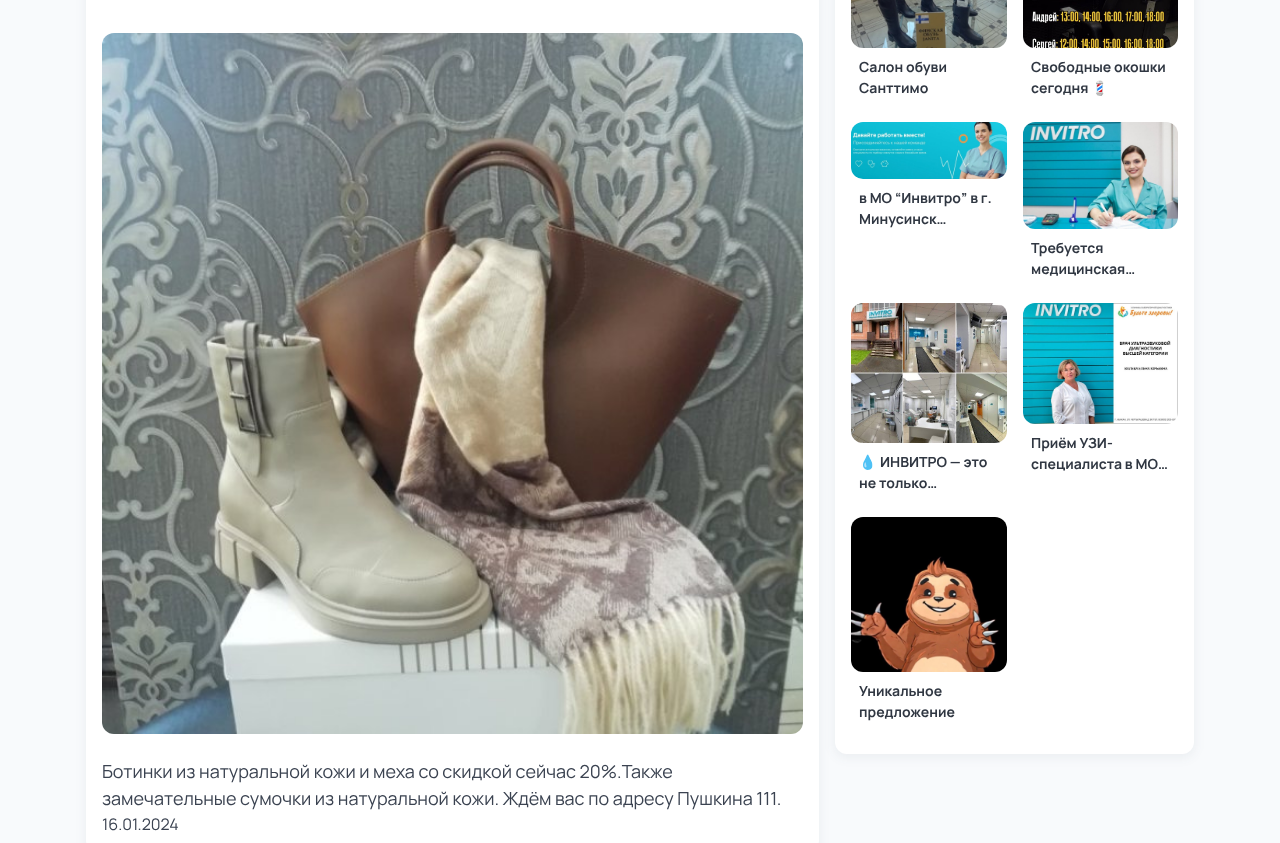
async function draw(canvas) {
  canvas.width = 1280;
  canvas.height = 843;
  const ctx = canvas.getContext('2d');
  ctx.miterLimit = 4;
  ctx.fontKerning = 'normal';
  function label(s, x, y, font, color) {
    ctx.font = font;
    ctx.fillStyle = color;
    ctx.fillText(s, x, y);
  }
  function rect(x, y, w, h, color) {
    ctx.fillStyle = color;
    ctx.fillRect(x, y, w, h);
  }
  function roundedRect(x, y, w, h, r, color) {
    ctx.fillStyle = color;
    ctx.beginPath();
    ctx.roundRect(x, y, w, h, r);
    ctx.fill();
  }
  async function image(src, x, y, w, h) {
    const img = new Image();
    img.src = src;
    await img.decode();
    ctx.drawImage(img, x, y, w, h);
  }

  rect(0, 0, 1280, 843, '#f8fafc');
  ctx.fillStyle = '#223c500d';
  ctx.filter = 'blur(5px)';
  ctx.beginPath();
  ctx.roundRect(84, -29, 737, 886, 14);
  ctx.fill();
  ctx.filter = 'none';
  roundedRect(86, -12, 733, 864, 12, '#fff');
  ctx.fillStyle = '#223c500d';
  ctx.filter = 'blur(5px)';
  ctx.beginPath();
  ctx.roundRect(833, -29, 363, 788, 14);
  ctx.fill();
  ctx.filter = 'none';
  roundedRect(835, -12, 359, 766, 12, '#fff');
  await image('assets/img1.png', 851, 0, 156, 48);
  label('Салон обуви', 859, 72, 'bold 14px Manrope', '#303742');
  label('Санттимо', 859, 93, 'bold 14px Manrope', '#303742');
  await image('assets/img2.png', 1023, 0, 155, 48);
  label('Свободные окошки', 1031, 72, 'bold 14px Manrope', '#303742');
  label('сегодня', 1031, 93, 'bold 14px Manrope', '#303742');
  label('💈', 1091, 93, 'bold 14px Noto Color Emoji', '#303742');
  await image('assets/img3.png', 851, 122, 156, 57);
  label('в МО “Инвитро” в г.', 859, 203, 'bold 14px Manrope', '#303742');
  label('Минусинск…', 859, 224, 'bold 14px Manrope', '#303742');
  await image('assets/img4.png', 1023, 122, 155, 107);
  label('Требуется', 1031, 253, 'bold 14px Manrope', '#303742');
  label('медицинская…', 1031, 274, 'bold 14px Manrope', '#303742');
  await image('assets/img5.png', 851, 303, 156, 140);
  label('💧', 859, 467, 'bold 14px Noto Color Emoji', '#303742');
  label('ИНВИТРО — это', 880, 467, 'bold 14px Manrope', '#303742');
  label('не только…', 859, 488, 'bold 14px Manrope', '#303742');
  await image('assets/img6.png', 1023, 303, 155, 121);
  label('Приём УЗИ-', 1031, 448, 'bold 14px Manrope', '#303742');
  label('специалиста в МО…', 1031, 469, 'bold 14px Manrope', '#303742');
  await image('assets/img7.png', 851, 517, 156, 155);
  label('Уникальное', 859, 696, 'bold 14px Manrope', '#303742');
  label('предложение', 859, 717, 'bold 14px Manrope', '#303742');
  await image('assets/img8.png', 102, 33, 701, 701);
  label('Ботинки из натуральной кожи и меха со скидкой сейчас 20%.Также', 102, 778, '18px Manrope', '#3b4351');
  label('замечательные сумочки из натуральной кожи. Ждём вас по адресу Пушкина 111.', 102, 805, '18px Manrope', '#3b4351');
  label('16.01.2024', 102, 830, '16px Manrope', '#3b4351');
}

draw(document.querySelector('canvas'));
